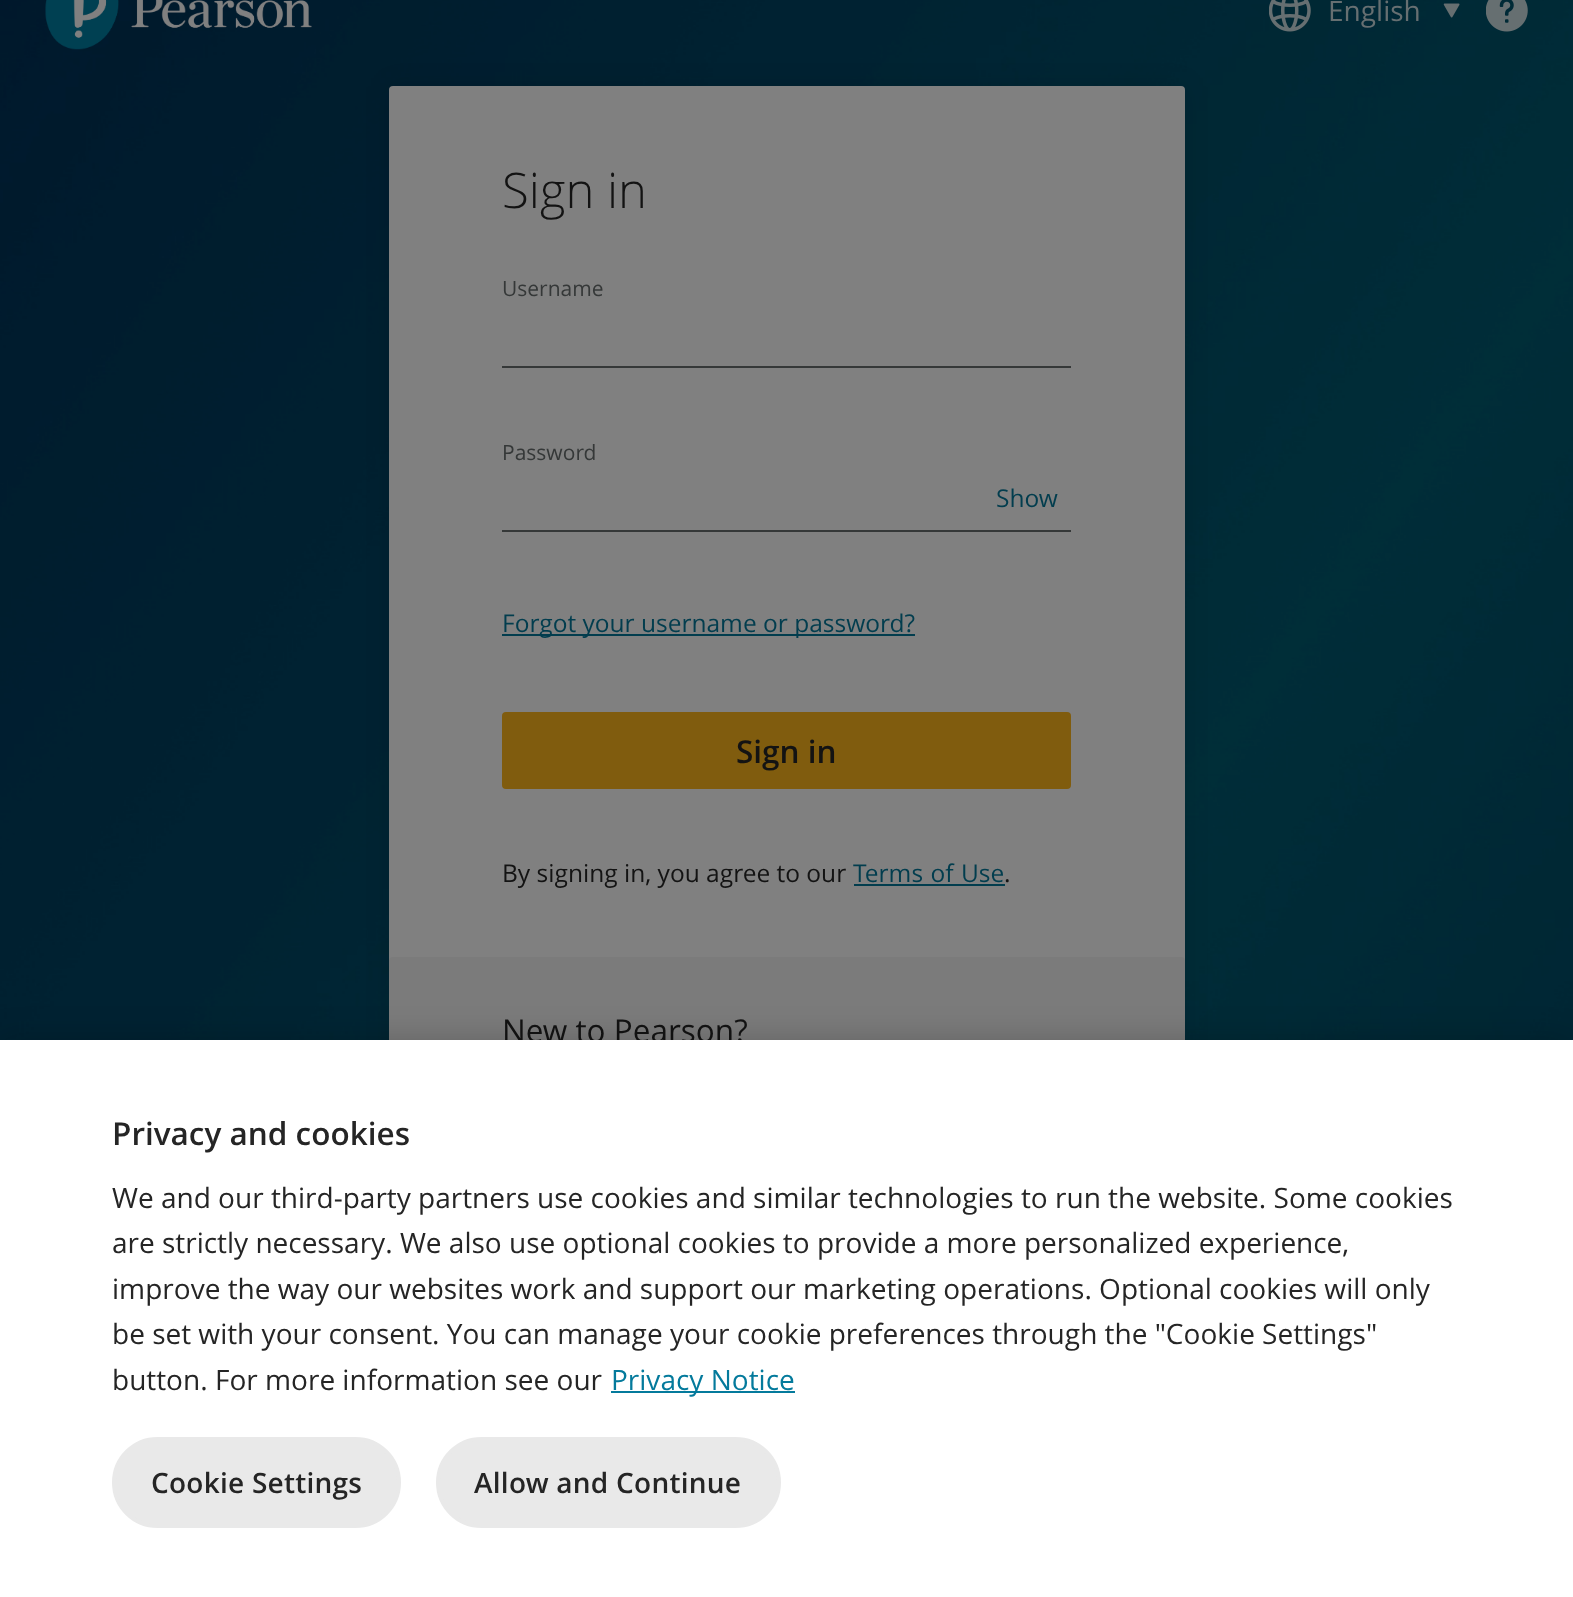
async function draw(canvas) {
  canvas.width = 1573;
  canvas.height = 1597;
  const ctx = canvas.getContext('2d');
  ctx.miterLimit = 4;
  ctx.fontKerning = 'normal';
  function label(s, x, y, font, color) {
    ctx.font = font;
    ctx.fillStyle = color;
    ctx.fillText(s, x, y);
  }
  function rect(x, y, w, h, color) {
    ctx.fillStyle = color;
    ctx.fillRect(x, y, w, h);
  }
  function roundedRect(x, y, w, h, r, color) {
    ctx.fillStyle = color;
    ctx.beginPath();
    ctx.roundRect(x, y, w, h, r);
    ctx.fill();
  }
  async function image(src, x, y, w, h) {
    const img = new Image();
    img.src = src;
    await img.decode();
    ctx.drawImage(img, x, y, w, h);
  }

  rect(0, 0, 1573, 1597, '#fff');
  await image('assets/img1.png', 0, 0, 1573, 1040);
  await image('assets/img2.png', 45, 0, 267, 50);
  await image('assets/img3.png', 1269, 0, 42, 32);
  label('English', 1328, 21, '28px Open Sans', '#666f71');
  await image('assets/img4.png', 1443, 3, 17, 15);
  await image('assets/img5.png', 1486, 0, 42, 32);
  ctx.fillStyle = '#0000001a';
  ctx.filter = 'blur(12px)';
  ctx.beginPath();
  ctx.roundRect(389, 86, 796, 1155, 4);
  ctx.fill();
  ctx.filter = 'none';
  roundedRect(389, 86, 796, 1155, 4, '#808080');
  label('Sign in', 502, 208, '300 49px Open Sans', '#131313');
  label('Username', 502, 296, '21px Open Sans', '#353838');
  rect(502, 366, 569, 2, '#353838');
  label('Password', 502, 460, '21px Open Sans', '#353838');
  label('Show', 996, 507, '24.5px Open Sans', '#023d4e');
  rect(502, 530, 569, 2, '#353838');
  rect(502, 634, 413, 2, '#023d4e');
  label('Forgot your username or password?', 502, 632, '24.5px Open Sans', '#023d4e');
  roundedRect(502, 712, 569, 77, 4, '#805c0e');
  label('Sign in', 736, 763, '600 31.5px Open Sans', '#131313');
  label('By signing in, you agree to our', 502, 882, '24.5px Open Sans', '#131313');
  ctx.wordSpacing = '1px';
  label('Terms of Use', 853, 882, '24.5px Open Sans', '#023d4e');
  rect(854, 884, 151, 2, '#023d4e');
  ctx.wordSpacing = '0px';
  label('.', 1004, 882, '24.5px Open Sans', '#131313');
  roundedRect(389, 957, 796, 284, 4, '#7b7b7b');
  label('New to Pearson?', 502, 1042, '31.5px Open Sans', '#131313');
  ctx.fillStyle = '#00000033';
  ctx.filter = 'blur(16px)';
  ctx.beginPath();
  ctx.rect(0, 1040, 1573, 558);
  ctx.fill();
  ctx.filter = 'none';
  rect(0, 1040, 1573, 557, '#fff');
  label('Privacy and cookies', 112, 1145, '600 31.5px Open Sans', '#252525');
  label('We and our third-party partners use cookies and similar technologies to run the website. Some cookies', 112, 1208, '28px "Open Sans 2"', '#252525');
  label('are strictly necessary. We also use optional cookies to provide a more personalized experience,', 112, 1253, '28px "Open Sans 2"', '#252525');
  label('improve the way our websites work and support our marketing operations. Optional cookies will only', 112, 1299, '28px "Open Sans 2"', '#252525');
  label('be set with your consent. You can manage your cookie preferences through the "Cookie Settings"', 112, 1344, '28px "Open Sans 2"', '#252525');
  label('button. For more information see our', 112, 1390, '28px "Open Sans 2"', '#252525');
  rect(611, 1391, 184, 2, '#047a9c');
  label('Privacy Notice', 611, 1390, '28px "Open Sans 2"', '#047a9c');
  ctx.fillStyle = '#e9e9e9';
  ctx.beginPath();
  ctx.roundRect(114, 1439, 285, 87, 43.5);
  ctx.fill();
  ctx.strokeStyle = '#e9e9e9';
  ctx.lineWidth = 4;
  ctx.stroke();
  ctx.letterSpacing = '0.25px';
  label('Cookie Settings', 151, 1493, '600 28px Open Sans', '#252525');
  ctx.fillStyle = '#e9e9e9';
  ctx.beginPath();
  ctx.roundRect(438, 1439, 341, 87, 43.5);
  ctx.fill();
  ctx.stroke();
  label('Allow and Continue', 474, 1493, '600 28px Open Sans', '#252525');
}

draw(document.querySelector('canvas'));
